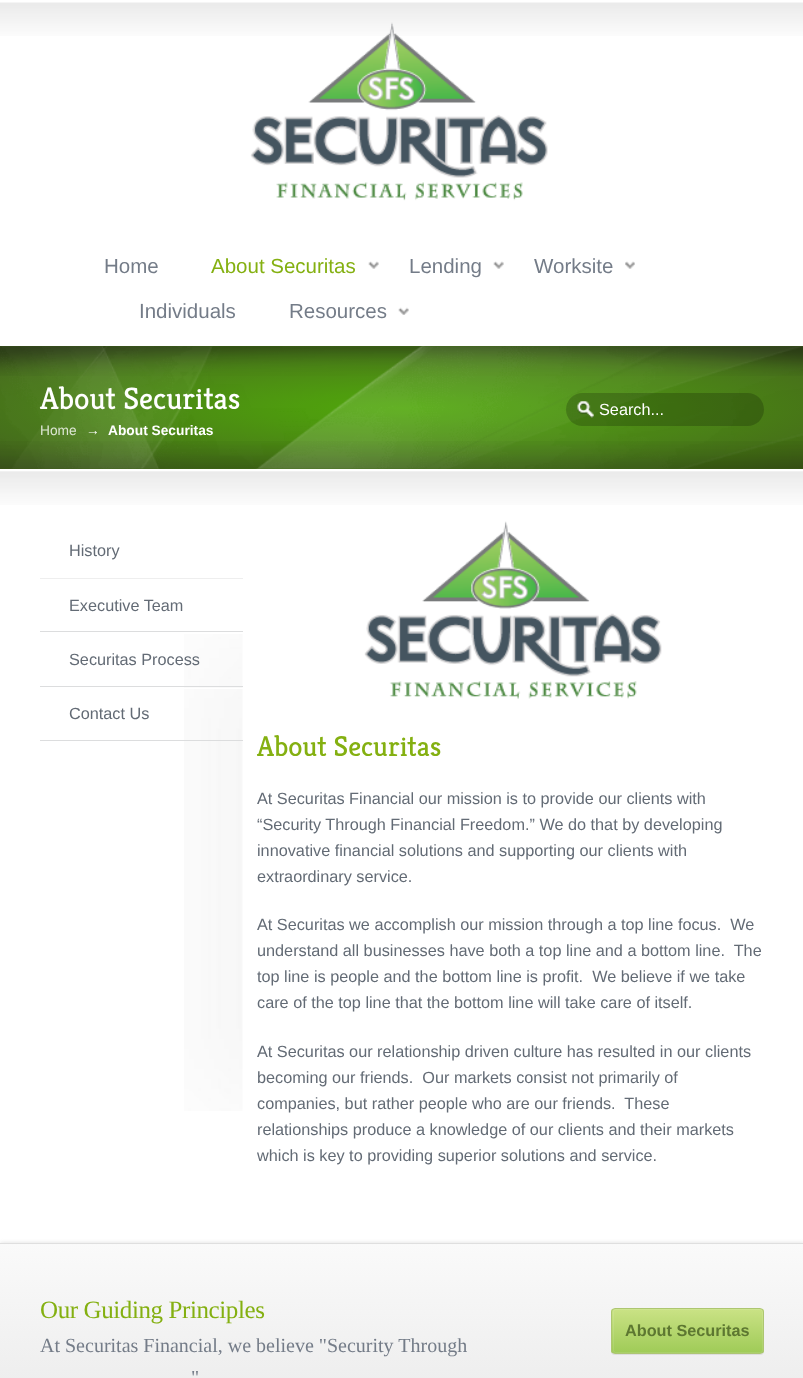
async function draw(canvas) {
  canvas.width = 803;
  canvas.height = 1378;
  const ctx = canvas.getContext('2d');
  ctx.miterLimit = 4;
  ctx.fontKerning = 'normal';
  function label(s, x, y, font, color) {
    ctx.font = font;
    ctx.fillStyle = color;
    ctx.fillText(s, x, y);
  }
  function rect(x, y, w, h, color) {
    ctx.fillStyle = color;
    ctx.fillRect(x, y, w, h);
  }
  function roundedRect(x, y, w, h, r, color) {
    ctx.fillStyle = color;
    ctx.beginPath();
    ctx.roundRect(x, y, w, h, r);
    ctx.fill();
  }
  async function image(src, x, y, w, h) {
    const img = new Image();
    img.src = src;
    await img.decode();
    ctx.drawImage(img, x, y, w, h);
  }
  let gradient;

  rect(0, 0, 803, 1378, '#fff');
  await image('assets/img1.png', 0, 2, 803, 34);
  await image('assets/img2.png', 250, 22, 298, 179);
  label('Home', 104, 273, '20.5px Liberation Sans', '#747c88');
  label('About Securitas', 211, 273, '20.5px Liberation Sans', '#84b011');
  await image('assets/img3.png', 368, 261, 11, 8);
  label('Lending', 409, 273, '20.5px Liberation Sans', '#747c88');
  await image('assets/img4.png', 493, 261, 11, 8);
  label('Worksite', 534, 273, '20.5px Liberation Sans', '#747c88');
  await image('assets/img5.png', 625, 261, 10, 8);
  label('Individuals', 139, 318, '20.5px Liberation Sans', '#747c88');
  label('Resources', 289, 318, '20.5px Liberation Sans', '#747c88');
  await image('assets/img6.png', 398, 307, 11, 8);
  gradient = ctx.createRadialGradient(402, 2663.72, 0, 402, 2663.72, 568);
  gradient.addColorStop(0, '#49a501');
  gradient.addColorStop(1, '#416119');
  ctx.fillStyle = gradient;
  ctx.beginPath();
  ctx.rect(0, 346, 803, 123);
  ctx.save();
  ctx.clip();
  ctx.scale(1, 87 / 568);
  ctx.fillRect(0, 0, 803, 8997);
  ctx.restore();
  await image('assets/img7.png', 0, 346, 803, 30);
  await image('assets/img10.png', 0, 441, 803, 28);
  await image('assets/img8.png', 0, 346, 803, 123);
  label('About Securitas', 40, 409, '300 31.25px Kreon', '#fff');
  roundedRect(566, 393, 198, 33, 16.5, '#00000033');
  await image('assets/img9.png', 577, 401, 17, 17);
  label('Search...', 599, 415, '16.25px Liberation Sans', '#fff');
  label('Home', 40, 435, '13.75px Liberation Sans', '#dde6d4');
  label('→', 86, 435, '13.75px Liberation Sans', '#fff');
  label('About Securitas', 108, 435, 'bold 13.75px Liberation Sans', '#fff');
  await image('assets/img11.png', 0, 471, 803, 34);
  await image('assets/img12.png', 184, 634, 59, 477);
  rect(40, 578, 203, 1, '#eee');
  label('History', 69, 556, '16.25px Liberation Sans', '#636b75');
  rect(40, 631, 203, 1, '#dcddde');
  label('Executive Team', 69, 611, '16.25px Liberation Sans', '#636b75');
  rect(40, 686, 203, 1, '#dcddde');
  label('Securitas Process', 69, 665, '16.25px Liberation Sans', '#636b75');
  rect(184, 688, 59, 1, '#fff');
  rect(40, 740, 203, 1, '#dcddde');
  label('Contact Us', 69, 719, '16.25px Liberation Sans', '#636b75');
  await image('assets/img13.png', 364, 521, 298, 178);
  label('About Securitas', 257, 756, '300 28.75px Kreon', '#84b011');
  label('At Securitas Financial our mission is to provide our clients with', 257, 804, '16.25px Liberation Sans', '#636b75');
  label('“Security Through Financial Freedom.” We do that by developing', 257, 830, '16.25px Liberation Sans', '#636b75');
  label('innovative financial solutions and supporting our clients with', 257, 856, '16.25px Liberation Sans', '#636b75');
  label('extraordinary service.', 257, 882, '16.25px Liberation Sans', '#636b75');
  label('At Securitas we accomplish our mission through a top line focus.  We', 257, 930, '16.25px Liberation Sans', '#636b75');
  label('understand all businesses have both a top line and a bottom line.  The', 257, 956, '16.25px Liberation Sans', '#636b75');
  label('top line is people and the bottom line is profit.  We believe if we take', 257, 982, '16.25px Liberation Sans', '#636b75');
  label('care of the top line that the bottom line will take care of itself.', 257, 1008, '16.25px Liberation Sans', '#636b75');
  label('At Securitas our relationship driven culture has resulted in our clients', 257, 1057, '16.25px Liberation Sans', '#636b75');
  label('becoming our friends.  Our markets consist not primarily of', 257, 1083, '16.25px Liberation Sans', '#636b75');
  label('companies, but rather people who are our friends.  These', 257, 1109, '16.25px Liberation Sans', '#636b75');
  label('relationships produce a knowledge of our clients and their markets', 257, 1135, '16.25px Liberation Sans', '#636b75');
  label('which is key to providing superior solutions and service.', 257, 1161, '16.25px Liberation Sans', '#636b75');
  ctx.fillStyle = '#ddd';
  ctx.filter = 'blur(2px)';
  ctx.beginPath();
  ctx.rect(0, 1243, 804, 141);
  ctx.fill();
  ctx.filter = 'none';
  gradient = ctx.createLinearGradient(402, 1244, 402, 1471);
  gradient.addColorStop(0, '#fafafa');
  gradient.addColorStop(1, '#e6e6e6');
  ctx.fillStyle = gradient;
  ctx.fillRect(0, 1244, 803, 134);
  rect(0, 1243, 803, 1, '#dfdfdf');
  ctx.letterSpacing = '-0.4px';
  label('Our Guiding Principles', 40, 1318, '25px Liberation Serif', '#84b011');
  ctx.letterSpacing = '0px';
  label('At Securitas Financial, we believe "Security Through', 40, 1352, '20px Liberation Serif', '#747c88');
  label('"', 191, 1384, '20px Liberation Serif', '#747c88');
  ctx.fillStyle = '#00000014';
  ctx.filter = 'blur(0.5px)';
  ctx.beginPath();
  ctx.roundRect(611, 1309, 153, 46, 4);
  ctx.fill();
  ctx.filter = 'none';
  ctx.save();
  ctx.beginPath();
  ctx.roundRect(611, 1308, 153, 46, 4);
  ctx.clip();
  gradient = ctx.createLinearGradient(688, 1309, 688, 1353);
  gradient.addColorStop(0, '#cae285');
  gradient.addColorStop(1, '#9fcb57');
  ctx.fillStyle = gradient;
  ctx.fillRect(611, 1309, 153, 44);
  ctx.restore();
  ctx.beginPath();
  ctx.roundRect(613.5, 1309.5, 149, 43, 2);
  ctx.strokeStyle = '#ffffff1a';
  ctx.stroke();
  ctx.beginPath();
  ctx.roundRect(611.5, 1308.5, 152, 45, 3.5);
  ctx.strokeStyle = '#adc671';
  ctx.stroke();
  label('About Securitas', 625, 1336, 'bold 16.25px Liberation Sans', '#5d7731');
}

draw(document.querySelector('canvas'));
